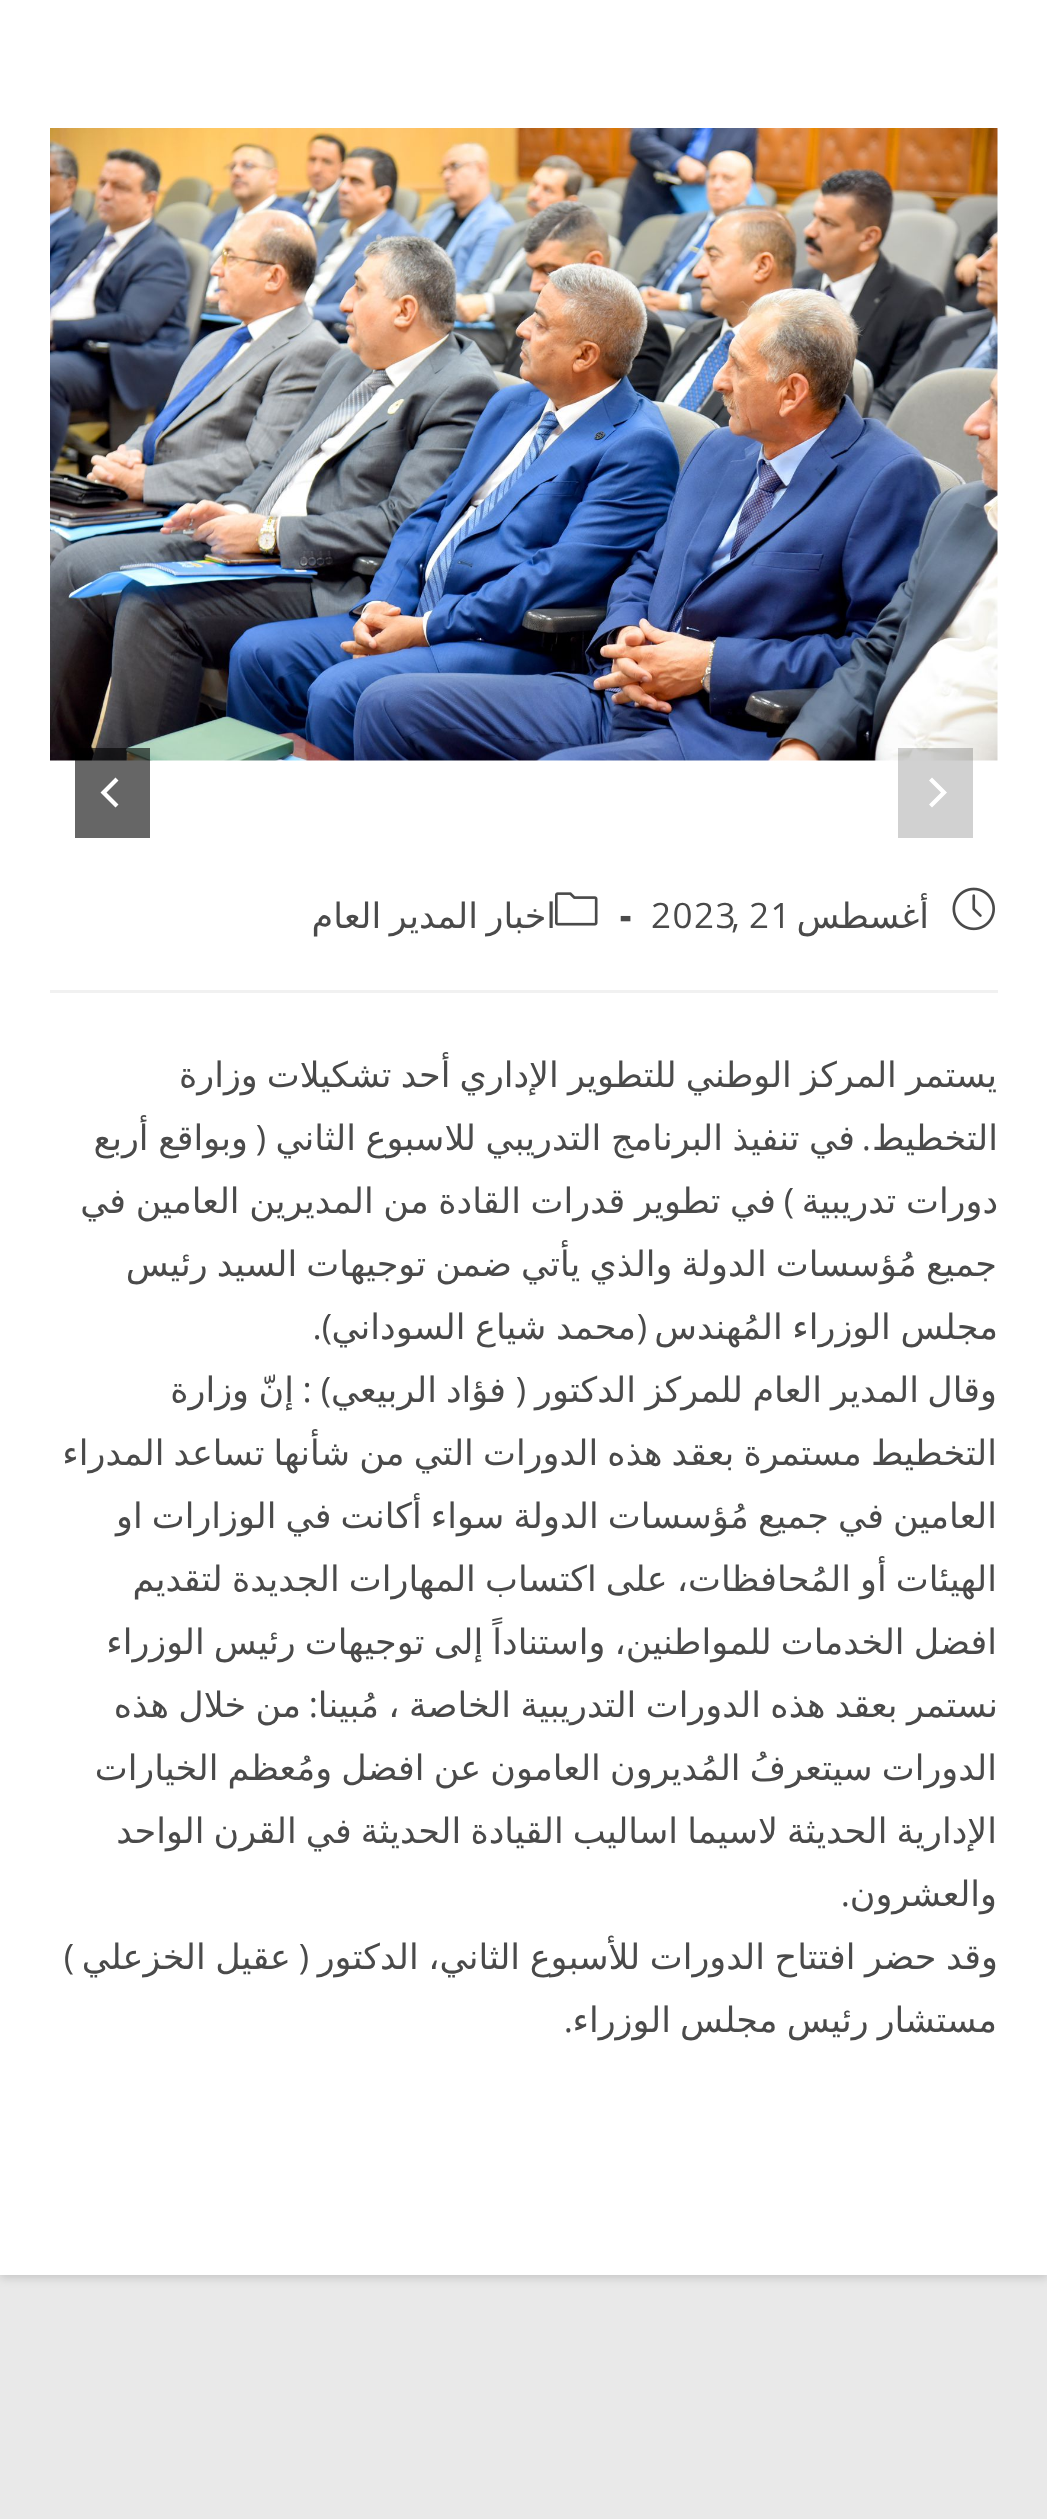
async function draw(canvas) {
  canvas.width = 1047;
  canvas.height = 2519;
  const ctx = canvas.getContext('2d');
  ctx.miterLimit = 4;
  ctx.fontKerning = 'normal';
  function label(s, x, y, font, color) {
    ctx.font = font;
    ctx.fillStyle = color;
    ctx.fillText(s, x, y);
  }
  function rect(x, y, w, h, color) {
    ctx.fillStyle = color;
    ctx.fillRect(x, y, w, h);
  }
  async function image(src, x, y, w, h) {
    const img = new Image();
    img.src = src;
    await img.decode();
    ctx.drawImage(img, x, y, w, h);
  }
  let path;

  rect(0, 0, 1047, 2519, '#e9e9e9');
  ctx.fillStyle = '#00000026';
  ctx.filter = 'blur(5px)';
  ctx.beginPath();
  ctx.rect(0, 3, 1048, 2275);
  ctx.fill();
  ctx.filter = 'none';
  rect(0, 0, 1047, 2275, '#fff');
  await image('assets/img1.png', 50, 128, 948, 633);
  rect(898, 748, 75, 90, '#0000002e');
  ctx.fillStyle = '#fff';
  path = new Path2D('M947 792.5L932 777.5L929 780.5L941 792.5L929 804.5L932 807.5Z');
  ctx.fill(path);
  rect(75, 748, 75, 90, '#00000099');
  ctx.fillStyle = '#fff';
  path = new Path2D('M100.5 792.5L115.5 807.5L118.5 804.5L106.5 792.5L118.5 780.5L115.5 777.5Z');
  ctx.fill(path);
  rect(50, 990, 948, 3, '#f1f1f1');
  await image('assets/img2.png', 952, 887, 43, 44);
  ctx.letterSpacing = '1.5px';
  ctx.direction = 'rtl';
  label('أغسطس', 929, 928, '35px DejaVu Sans', '#4a4a4a');
  ctx.direction = 'ltr';
  label('21', 749, 928, '35px Open Sans', '#4a4a4a');
  label('2023', 651, 928, '35px Open Sans', '#4a4a4a');
  label('-', 620, 928, '800 35px Open Sans', '#4a4a4a');
  label(',', 731, 928, '35px Open Sans', '#4a4a4a');
  await image('assets/img3.png', 555, 892, 43, 34);
  ctx.wordSpacing = '-4px';
  ctx.direction = 'rtl';
  label('اخبار المدير العام', 556, 928, '35px DejaVu Sans', '#4a4a4a');
  ctx.letterSpacing = '0px';
  ctx.wordSpacing = '-2px';
  label('يستمر المركز الوطني للتطوير الإداري أحد تشكيلات وزارة', 997, 1087, '35px DejaVu Sans', '#4a4a4a');
  ctx.wordSpacing = '0px';
  label('التخطيط', 998, 1150, '35px DejaVu Sans', '#4a4a4a');
  label('.', 871, 1150, '35px Open Sans', '#4a4a4a');
  ctx.wordSpacing = '-1.5px';
  label('في تنفيذ البرنامج التدريبي للاسبوع الثاني', 855, 1150, '35px DejaVu Sans', '#4a4a4a');
  ctx.wordSpacing = '0px';
  label('(', 266, 1150, '35px Open Sans', '#4a4a4a');
  ctx.wordSpacing = '-1.5px';
  label('وبواقع أربع', 248, 1150, '35px DejaVu Sans', '#4a4a4a');
  label('دورات تدريبية', 998, 1213, '35px DejaVu Sans', '#4a4a4a');
  label('في تطوير قدرات القادة من المديرين العامين في', 776, 1213, '35px DejaVu Sans', '#4a4a4a');
  ctx.wordSpacing = '0px';
  label(')', 794, 1213, '35px Open Sans', '#4a4a4a');
  ctx.wordSpacing = '-2px';
  label('جميع مُؤسسات الدولة والذي يأتي ضمن توجيهات السيد رئيس', 997, 1276, '35px DejaVu Sans', '#4a4a4a');
  ctx.wordSpacing = '-1.5px';
  label('مجلس الوزراء المُهندس', 998, 1339, '35px DejaVu Sans', '#4a4a4a');
  ctx.wordSpacing = '0px';
  label('(', 647, 1339, '35px Open Sans', '#4a4a4a');
  ctx.wordSpacing = '-1.5px';
  label('محمد شياع السوداني', 636, 1339, '35px DejaVu Sans', '#4a4a4a');
  ctx.wordSpacing = '0px';
  label(').', 332, 1339, '35px Open Sans', '#4a4a4a');
  label('وقال', 997, 1402, '35px DejaVu Sans', '#4a4a4a');
  label('المدير', 919, 1402, '35px DejaVu Sans', '#4a4a4a');
  label('العام', 822, 1402, '35px DejaVu Sans', '#4a4a4a');
  label('للمركز', 743, 1402, '35px DejaVu Sans', '#4a4a4a');
  label('الدكتور', 636, 1402, '35px DejaVu Sans', '#4a4a4a');
  label('(', 526, 1402, '35px Open Sans', '#4a4a4a');
  label('فؤاد', 506, 1402, '35px DejaVu Sans', '#4a4a4a');
  label('الربيعي', 437, 1402, '35px DejaVu Sans', '#4a4a4a');
  label(') :', 331, 1402, '35px Open Sans', '#4a4a4a');
  label('إنّ', 294, 1402, '35px DejaVu Sans', '#4a4a4a');
  label('وزارة', 249, 1402, '35px DejaVu Sans', '#4a4a4a');
  ctx.wordSpacing = '-2px';
  label('التخطيط مستمرة بعقد هذه الدورات التي من شأنها تساعد المدراء', 997, 1465, '35px DejaVu Sans', '#4a4a4a');
  label('العامين في جميع مُؤسسات الدولة سواء أكانت في الوزارات او', 997, 1528, '35px DejaVu Sans', '#4a4a4a');
  label('الهيئات أو المُحافظات، على اكتساب المهارات الجديدة لتقديم', 997, 1591, '35px DejaVu Sans', '#4a4a4a');
  label('افضل الخدمات للمواطنين، واستناداً إلى توجيهات رئيس الوزراء', 997, 1654, '35px DejaVu Sans', '#4a4a4a');
  ctx.wordSpacing = '-1.75px';
  label('نستمر بعقد هذه الدورات التدريبية الخاصة ، مُبينا', 998, 1717, '35px DejaVu Sans', '#4a4a4a');
  ctx.wordSpacing = '0px';
  label(':', 318, 1717, '35px Open Sans', '#4a4a4a');
  ctx.wordSpacing = '-1.75px';
  label('من خلال هذه', 301, 1717, '35px DejaVu Sans', '#4a4a4a');
  ctx.wordSpacing = '-2px';
  label('الدورات سيتعرفُ المُديرون العامون عن افضل ومُعظم الخيارات', 997, 1780, '35px DejaVu Sans', '#4a4a4a');
  label('الإدارية الحديثة لاسيما اساليب القيادة الحديثة في القرن الواحد', 997, 1843, '35px DejaVu Sans', '#4a4a4a');
  ctx.wordSpacing = '0px';
  label('والعشرون', 997, 1906, '35px DejaVu Sans', '#4a4a4a');
  label('.', 850, 1906, '35px Open Sans', '#4a4a4a');
  ctx.wordSpacing = '-1.5px';
  label('وقد حضر افتتاح الدورات للأسبوع الثاني، الدكتور', 998, 1969, '35px DejaVu Sans', '#4a4a4a');
  ctx.wordSpacing = '0px';
  label('(', 309, 1969, '35px Open Sans', '#4a4a4a');
  ctx.wordSpacing = '-1.5px';
  label('عقيل الخزعلي', 291, 1969, '35px DejaVu Sans', '#4a4a4a');
  ctx.wordSpacing = '0px';
  label(')', 74, 1969, '35px Open Sans', '#4a4a4a');
  ctx.wordSpacing = '-2px';
  label('مستشار رئيس مجلس الوزراء', 997, 2032, '35px DejaVu Sans', '#4a4a4a');
  ctx.wordSpacing = '0px';
  label('.', 573, 2032, '35px Open Sans', '#4a4a4a');
}

draw(document.querySelector('canvas'));
